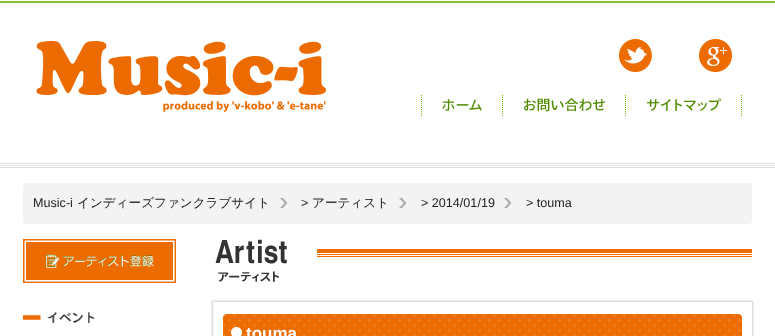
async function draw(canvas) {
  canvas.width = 775;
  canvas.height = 336;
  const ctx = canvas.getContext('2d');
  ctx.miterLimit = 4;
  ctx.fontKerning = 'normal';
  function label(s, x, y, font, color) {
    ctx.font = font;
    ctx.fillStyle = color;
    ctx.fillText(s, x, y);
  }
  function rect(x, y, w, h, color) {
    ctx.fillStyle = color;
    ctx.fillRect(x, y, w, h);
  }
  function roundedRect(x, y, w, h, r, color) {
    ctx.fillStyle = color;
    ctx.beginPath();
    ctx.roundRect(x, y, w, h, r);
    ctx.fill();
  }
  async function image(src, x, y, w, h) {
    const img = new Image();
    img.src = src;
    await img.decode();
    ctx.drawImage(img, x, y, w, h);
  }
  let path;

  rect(0, 0, 775, 336, '#fff');
  rect(0, 1, 775, 2, '#85c229');
  await image('assets/img1.png', 36, 41, 290, 71);
  await image('assets/img2.png', 619, 39, 33, 33);
  await image('assets/img3.png', 699, 39, 33, 33);
  await image('assets/img4.png', 421, 95, 61, 21);
  await image('assets/img5.png', 502, 95, 104, 21);
  await image('assets/img6.png', 625, 95, 117, 21);
  await image('assets/img7.png', 0, 163, 775, 5);
  roundedRect(23, 183, 729, 41, 4, '#f3f3f3');
  await image('assets/img8.png', 280, 198, 8, 10);
  label('Music-i', 33, 207, '12.6px Liberation Sans', '#222');
  label('インディーズファンクラブサイト', 77, 207, '500 12.6px WenQuanYi Zen Hei', '#222');
  label('>', 301, 207, '12.6px Liberation Sans', '#222');
  await image('assets/img8.png', 399, 198, 8, 10);
  label('アーティスト', 312, 207, '500 12.6px WenQuanYi Zen Hei', '#222');
  label('> 2014/01/19', 421, 207, '12.6px Liberation Sans', '#222');
  await image('assets/img8.png', 504, 198, 8, 10);
  label('> touma', 526, 207, '12.6px Liberation Sans', '#222');
  await image('assets/img9.png', 23, 239, 153, 44);
  await image('assets/img10.png', 23, 311, 72, 13);
  await image('assets/img11.png', 317, 249, 435, 8);
  await image('assets/img12.png', 213, 239, 104, 43);
  ctx.save();
  path = new Path2D('M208 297H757V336H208ZM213 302H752V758H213Z');
  ctx.clip(path, 'evenodd');
  ctx.fillStyle = '#00000033';
  ctx.filter = 'blur(1px)';
  ctx.beginPath();
  ctx.rect(212, 301, 541, 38);
  ctx.fill();
  ctx.filter = 'none';
  ctx.restore();
  await image('assets/img13.png', 223, 314, 519, 22);
  await image('assets/img14.png', 231, 327, 11, 9);
  label('touma', 246, 339, 'bold 17px Liberation Sans', '#fff');
}

draw(document.querySelector('canvas'));
